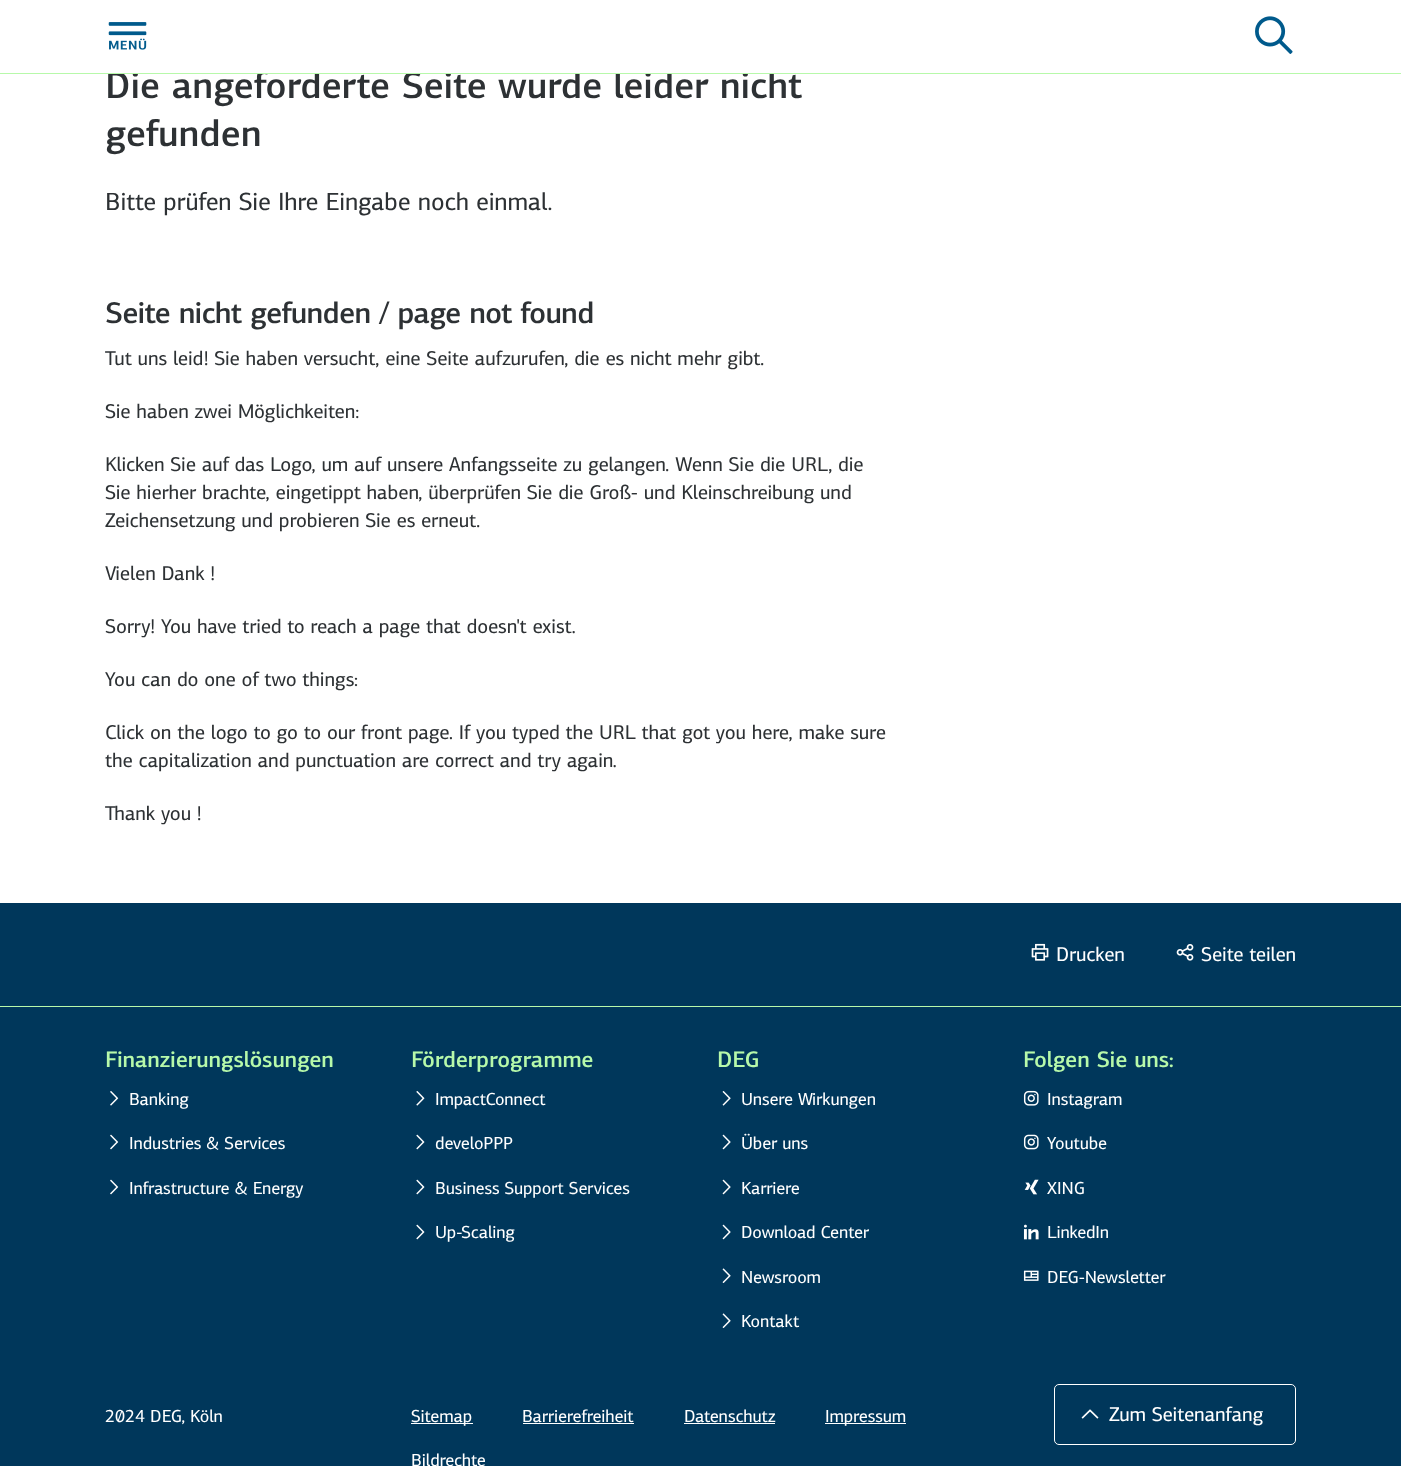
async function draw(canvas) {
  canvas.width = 1401;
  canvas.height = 1466;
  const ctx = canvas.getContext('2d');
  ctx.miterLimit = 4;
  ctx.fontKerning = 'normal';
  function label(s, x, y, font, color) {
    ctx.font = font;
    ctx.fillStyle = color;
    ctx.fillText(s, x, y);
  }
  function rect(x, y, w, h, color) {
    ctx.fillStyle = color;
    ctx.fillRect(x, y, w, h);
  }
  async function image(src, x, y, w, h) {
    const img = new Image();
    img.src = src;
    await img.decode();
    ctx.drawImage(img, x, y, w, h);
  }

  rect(0, 0, 1401, 1466, '#fff');
  label('Die angeforderte Seite wurde leider nicht', 105, 98, '500 37.5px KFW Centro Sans', '#2d3134');
  rect(108, 70, 666, 3, '#fff');
  await image('assets/img1.png', 108, 22, 39, 28);
  await image('assets/img2.png', 1255, 16, 38, 38);
  rect(0, 73, 1401, 1, '#b7f9aa');
  label('gefunden', 105, 146, '500 37.5px KFW Centro Sans', '#2d3134');
  label('Bitte prüfen Sie Ihre Eingabe noch einmal.', 105, 210, '25px KFW Centro Sans', '#2d3134');
  ctx.letterSpacing = '-0.6px';
  label('Seite nicht gefunden / page not found', 105, 323, '500 30px KFW Centro Sans', '#2d3134');
  ctx.letterSpacing = '0px';
  label('Tut uns leid! Sie haben versucht, eine Seite aufzurufen, die es nicht mehr gibt.', 105, 365, '20px KFW Centro Sans', '#2d3134');
  label('Sie haben zwei Möglichkeiten:', 105, 418, '20px KFW Centro Sans', '#2d3134');
  label('Klicken Sie auf das Logo, um auf unsere Anfangsseite zu gelangen. Wenn Sie die URL, die', 105, 471, '20px KFW Centro Sans', '#2d3134');
  label('Sie hierher brachte, eingetippt haben, überprüfen Sie die Groß- und Kleinschreibung und', 105, 499, '20px KFW Centro Sans', '#2d3134');
  label('Zeichensetzung und probieren Sie es erneut.', 105, 527, '20px KFW Centro Sans', '#2d3134');
  label('Vielen Dank !', 105, 580, '20px KFW Centro Sans', '#2d3134');
  label('Sorry! You have tried to reach a page that doesn\'t exist.', 105, 633, '20px KFW Centro Sans', '#2d3134');
  label('You can do one of two things:', 105, 686, '20px KFW Centro Sans', '#2d3134');
  label('Click on the logo to go to our front page. If you typed the URL that got you here, make sure', 105, 739, '20px KFW Centro Sans', '#2d3134');
  label('the capitalization and punctuation are correct and try again.', 105, 767, '20px KFW Centro Sans', '#2d3134');
  label('Thank you !', 105, 820, '20px KFW Centro Sans', '#2d3134');
  rect(0, 903, 1401, 563, '#00375b');
  await image('assets/img3.png', 1031, 943, 18, 18);
  label('Drucken', 1056, 961, '20px KFW Centro Sans', '#fff');
  await image('assets/img4.png', 1176, 944, 18, 17);
  label('Seite teilen', 1201, 961, '20px KFW Centro Sans', '#fff');
  rect(0, 1006, 1401, 1, '#b7f9aa');
  label('Finanzierungslösungen', 105, 1067, '500 22.5px KFW Centro Sans', '#b7f9aa');
  await image('assets/img5.png', 110, 1091, 9, 15);
  label('Banking', 129, 1105, '17.5px KFW Centro Sans', '#fff');
  await image('assets/img6.png', 110, 1134, 9, 16);
  label('Industries & Services', 129, 1149, '17.5px KFW Centro Sans', '#fff');
  await image('assets/img6.png', 110, 1179, 9, 16);
  label('Infrastructure & Energy', 129, 1194, '17.5px KFW Centro Sans', '#fff');
  label('Förderprogramme', 411, 1067, '500 22.5px KFW Centro Sans', '#b7f9aa');
  await image('assets/img7.png', 416, 1091, 9, 15);
  label('ImpactConnect', 435, 1105, '17.5px KFW Centro Sans', '#fff');
  await image('assets/img8.png', 416, 1134, 9, 16);
  label('develoPPP', 435, 1149, '17.5px KFW Centro Sans', '#fff');
  await image('assets/img8.png', 416, 1179, 9, 16);
  label('Business Support Services', 435, 1194, '17.5px KFW Centro Sans', '#fff');
  await image('assets/img8.png', 416, 1224, 9, 16);
  label('Up-Scaling', 435, 1238, '17.5px KFW Centro Sans', '#fff');
  label('DEG', 717, 1067, '500 22.5px KFW Centro Sans', '#b7f9aa');
  await image('assets/img9.png', 722, 1091, 9, 15);
  label('Unsere Wirkungen', 741, 1105, '17.5px KFW Centro Sans', '#fff');
  await image('assets/img10.png', 722, 1134, 9, 16);
  label('Über uns', 741, 1149, '17.5px KFW Centro Sans', '#fff');
  await image('assets/img10.png', 722, 1179, 9, 16);
  label('Karriere', 741, 1194, '17.5px KFW Centro Sans', '#fff');
  await image('assets/img10.png', 722, 1224, 9, 16);
  label('Download Center', 741, 1238, '17.5px KFW Centro Sans', '#fff');
  await image('assets/img11.png', 722, 1268, 9, 15);
  label('Newsroom', 741, 1283, '17.5px KFW Centro Sans', '#fff');
  await image('assets/img11.png', 722, 1313, 9, 15);
  label('Kontakt', 741, 1327, '17.5px KFW Centro Sans', '#fff');
  label('Folgen Sie uns:', 1023, 1067, '500 22.5px KFW Centro Sans', '#b7f9aa');
  await image('assets/img12.png', 1023, 1090, 16, 16);
  label('Instagram', 1047, 1105, '17.5px KFW Centro Sans', '#fff');
  await image('assets/img13.png', 1023, 1134, 16, 16);
  label('Youtube', 1047, 1149, '17.5px KFW Centro Sans', '#fff');
  await image('assets/img14.png', 1024, 1179, 15, 16);
  label('XING', 1047, 1194, '17.5px KFW Centro Sans', '#fff');
  await image('assets/img15.png', 1023, 1224, 16, 16);
  label('LinkedIn', 1047, 1238, '17.5px KFW Centro Sans', '#fff');
  await image('assets/img16.png', 1023, 1270, 16, 11);
  label('DEG-Newsletter', 1047, 1283, '17.5px KFW Centro Sans', '#fff');
  label('2024 DEG, Köln', 105, 1422, '17.5px KFW Centro Sans', '#fff');
  rect(411, 1423, 62, 1, '#fff');
  label('Sitemap', 411, 1422, '17.5px KFW Centro Sans', '#fff');
  label('Barrierefreiheit', 522, 1422, '17.5px KFW Centro Sans', '#fff');
  rect(523, 1423, 111, 1, '#fff');
  label('Datenschutz', 684, 1422, '17.5px KFW Centro Sans', '#fff');
  rect(684, 1423, 91, 1, '#fff');
  rect(825, 1423, 81, 1, '#fff');
  label('Impressum', 825, 1422, '17.5px KFW Centro Sans', '#fff');
  label('Bildrechte', 411, 1466, '17.5px KFW Centro Sans', '#fff');
  ctx.beginPath();
  ctx.roundRect(1054.5, 1384.5, 241, 60, 4.5);
  ctx.strokeStyle = '#fff';
  ctx.stroke();
  await image('assets/img17.png', 1081, 1409, 18, 10);
  label('Zum Seitenanfang', 1109, 1421, '20px KFW Centro Sans', '#fff');
}

draw(document.querySelector('canvas'));
